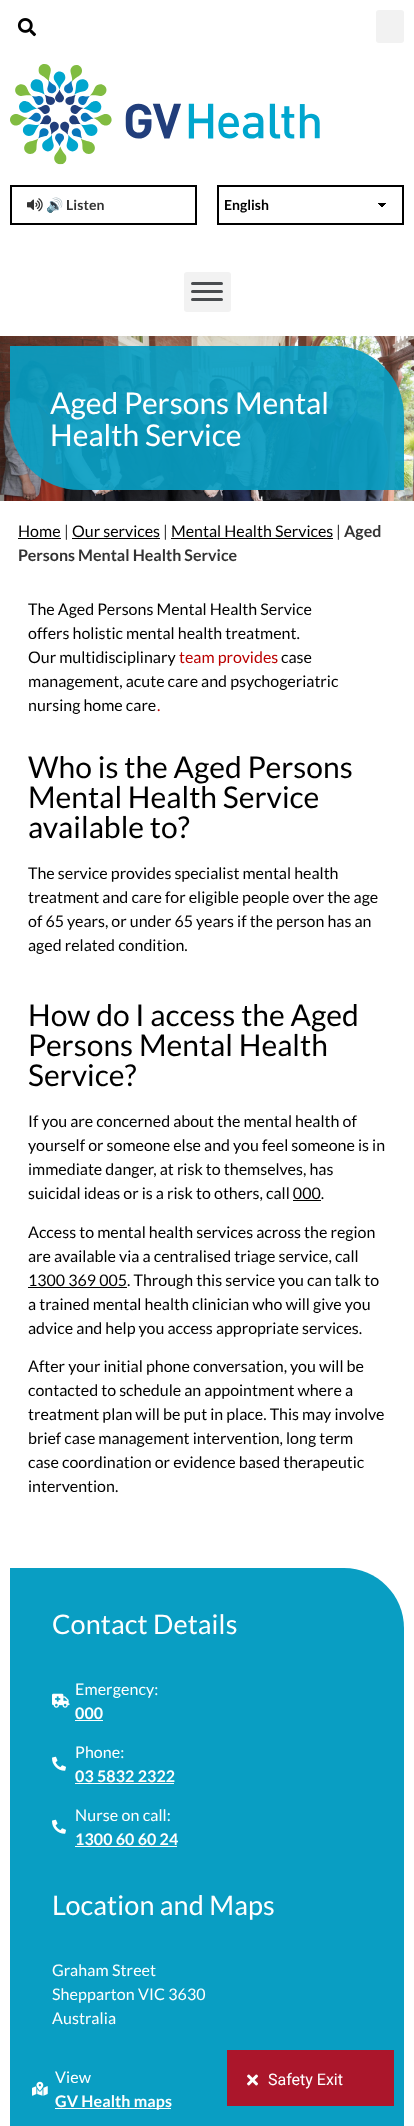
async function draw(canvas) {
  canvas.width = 414;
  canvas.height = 2126;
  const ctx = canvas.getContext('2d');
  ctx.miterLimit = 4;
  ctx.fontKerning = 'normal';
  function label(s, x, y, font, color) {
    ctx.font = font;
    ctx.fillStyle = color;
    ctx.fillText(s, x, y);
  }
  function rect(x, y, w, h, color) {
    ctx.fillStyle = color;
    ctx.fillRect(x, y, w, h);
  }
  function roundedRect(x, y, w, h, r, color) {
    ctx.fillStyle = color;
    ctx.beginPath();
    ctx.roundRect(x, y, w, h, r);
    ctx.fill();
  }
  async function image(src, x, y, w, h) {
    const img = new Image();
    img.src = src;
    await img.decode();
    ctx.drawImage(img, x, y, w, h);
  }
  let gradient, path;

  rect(0, 0, 414, 2126, '#fff');
  await image('assets/img1.png', 17, 18, 19, 19);
  roundedRect(376, 10, 28, 33, 3, '#f2f2f2');
  await image('assets/img2.png', 10, 64, 310, 101);
  ctx.strokeStyle = '#000';
  ctx.lineWidth = 2;
  ctx.strokeRect(11, 186, 185, 38);
  await image('assets/img3.png', 27, 198, 16, 14);
  ctx.letterSpacing = '0.1px';
  label('🔊', 46, 210, 'bold 14px Noto Color Emoji', '#333');
  label('Listen', 66, 210, 'bold 14px Lato', '#333');
  gradient = ctx.createLinearGradient(382, 203, 387, 208);
  gradient.addColorStop(0.5, '#000');
  gradient.addColorStop(0.5, '#fff');
  ctx.fillStyle = gradient;
  ctx.fillRect(382, 203, 5, 4);
  gradient = ctx.createLinearGradient(377, 208, 382, 203);
  gradient.addColorStop(0.5, '#fff');
  gradient.addColorStop(0.5, '#000');
  ctx.fillStyle = gradient;
  ctx.fillRect(377, 203, 5, 4);
  ctx.strokeRect(218, 186, 185, 38);
  ctx.letterSpacing = '0px';
  label('English', 224, 210, 'bold 14px Lato', '#000');
  roundedRect(184, 272, 47, 40, 3, '#f2f2f2');
  roundedRect(191, 282, 32, 3, 1.5, '#494c4f');
  roundedRect(191, 290, 32, 3, 1.5, '#494c4f');
  roundedRect(191, 298, 32, 3, 1.5, '#494c4f');
  await image('assets/img4.png', 0, 336, 414, 165);
  ctx.fillStyle = '#099ec3eb';
  ctx.beginPath();
  ctx.roundRect(10, 346, 394, 144, [0, 70, 0, 70]);
  ctx.fill();
  label('Aged Persons Mental', 50, 414, '30px Lato', '#fff');
  label('Health Service', 50, 446, '30px Lato', '#fff');
  label('Home', 18, 537, '16px Lato', '#000');
  rect(18, 538, 43, 1, '#000');
  label('|', 64, 537, '16px Lato', '#333');
  label('Our services', 72, 537, '16px Lato', '#000');
  rect(72, 538, 88, 1, '#000');
  label('|', 163, 537, '16px Lato', '#333');
  label('Mental Health Services', 171, 537, '16px Lato', '#000');
  rect(171, 538, 162, 1, '#000');
  label('|', 336, 537, '16px Lato', '#333');
  label('Aged', 344, 537, 'bold 16px Lato', '#333');
  label('Persons Mental Health Service', 18, 561, 'bold 16px Lato', '#333');
  label('The Aged Persons Mental Health Service', 28, 615, '16px Lato', '#000');
  label('offers holistic mental health treatment.', 28, 639, '16px Lato', '#000');
  label('Our multidisciplinary', 28, 663, '16px Lato', '#000');
  label('team provides', 179, 663, '16px Lato', '#ba0000');
  label('case', 281, 663, '16px Lato', '#000');
  label('management, acute care and psychogeriatric', 28, 687, '16px Lato', '#000');
  label('nursing home care', 28, 711, '16px Lato', '#000');
  label('.', 157, 711, '16px Lato', '#ba0000');
  label('Who is the Aged Persons', 28, 778, '30px Lato', '#000');
  label('Mental Health Service', 28, 808, '30px Lato', '#000');
  label('available to?', 28, 838, '30px Lato', '#000');
  label('The service provides specialist mental health', 28, 879, '16px Lato', '#000');
  label('treatment and care for eligible people over the age', 28, 903, '16px Lato', '#000');
  label('of 65 years, or under 65 years if the person has an', 28, 927, '16px Lato', '#000');
  label('aged related condition.', 28, 951, '16px Lato', '#000');
  label('How do I access the Aged', 28, 1026, '30px Lato', '#000');
  label('Persons Mental Health', 28, 1056, '30px Lato', '#000');
  label('Service?', 28, 1086, '30px Lato', '#000');
  label('If you are concerned about the mental health of', 28, 1127, '16px Lato', '#000');
  label('yourself or someone else and you feel someone is in', 28, 1151, '16px Lato', '#000');
  label('immediate danger, at risk to themselves, has', 28, 1175, '16px Lato', '#000');
  label('suicidal ideas or is a risk to others, call 000.', 28, 1199, '16px Lato', '#000');
  rect(293, 1200, 28, 1, '#000');
  label('Access to mental health services across the region', 28, 1238, '16px Lato', '#000');
  label('are available via a centralised triage service, call', 28, 1262, '16px Lato', '#000');
  rect(28, 1287, 99, 1, '#000');
  label('1300 369 005. Through this service you can talk to', 28, 1286, '16px Lato', '#000');
  label('a trained mental health clinician who will give you', 28, 1310, '16px Lato', '#000');
  label('advice and help you access appropriate services.', 28, 1334, '16px Lato', '#000');
  label('After your initial phone conversation, you will be', 28, 1372, '16px Lato', '#000');
  label('contacted to schedule an appointment where a', 28, 1396, '16px Lato', '#000');
  label('treatment plan will be put in place. This may involve', 28, 1420, '16px Lato', '#000');
  label('brief case management intervention, long term', 28, 1444, '16px Lato', '#000');
  label('case coordination or evidence based therapeutic', 28, 1468, '16px Lato', '#000');
  label('intervention.', 28, 1492, '16px Lato', '#000');
  ctx.fillStyle = '#099ec3';
  path = new Path2D('M10 1568H344C377 1568 404 1595 404 1628V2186H70C37 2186 10 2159 10 2126Z');
  ctx.fill(path);
  ctx.letterSpacing = '0.1px';
  label('Contact Details', 52, 1634, '27px Lato', '#fff');
  await image('assets/img5.png', 52, 1693, 18, 15);
  label('Emergency:', 75, 1695, '16px Lato', '#fff');
  label('000', 75, 1719, 'bold 16px Lato', '#fff');
  rect(75, 1720, 28, 1, '#fff');
  await image('assets/img6.png', 52, 1756, 14, 15);
  label('Phone:', 75, 1758, '16px Lato', '#fff');
  label('03 5832 2322', 75, 1782, 'bold 16px Lato', '#fff');
  rect(75, 1783, 99, 1, '#fff');
  await image('assets/img6.png', 52, 1819, 14, 15);
  label('Nurse on call:', 75, 1821, '16px Lato', '#fff');
  label('1300 60 60 24', 75, 1845, 'bold 16px Lato', '#fff');
  rect(75, 1846, 102, 1, '#fff');
  label('Location and Maps', 52, 1915, '27px Lato', '#fff');
  label('Graham Street', 52, 1976, '16px Lato', '#fff');
  label('Shepparton VIC 3630', 52, 2000, '16px Lato', '#fff');
  label('Australia', 52, 2024, '16px Lato', '#fff');
  await image('assets/img7.png', 32, 2081, 16, 15);
  label('View', 55, 2083, '16px Lato', '#fff');
  rect(55, 2108, 116, 1, '#fff');
  label('GV Health maps', 55, 2107, 'bold 16px Lato', '#fff');
  rect(227, 2050, 167, 56, '#ab162b');
  await image('assets/img8.png', 247, 2074, 11, 12);
  ctx.letterSpacing = '0px';
  label('Safety Exit', 268, 2085, '16px Roboto', '#fff');
}

draw(document.querySelector('canvas'));
